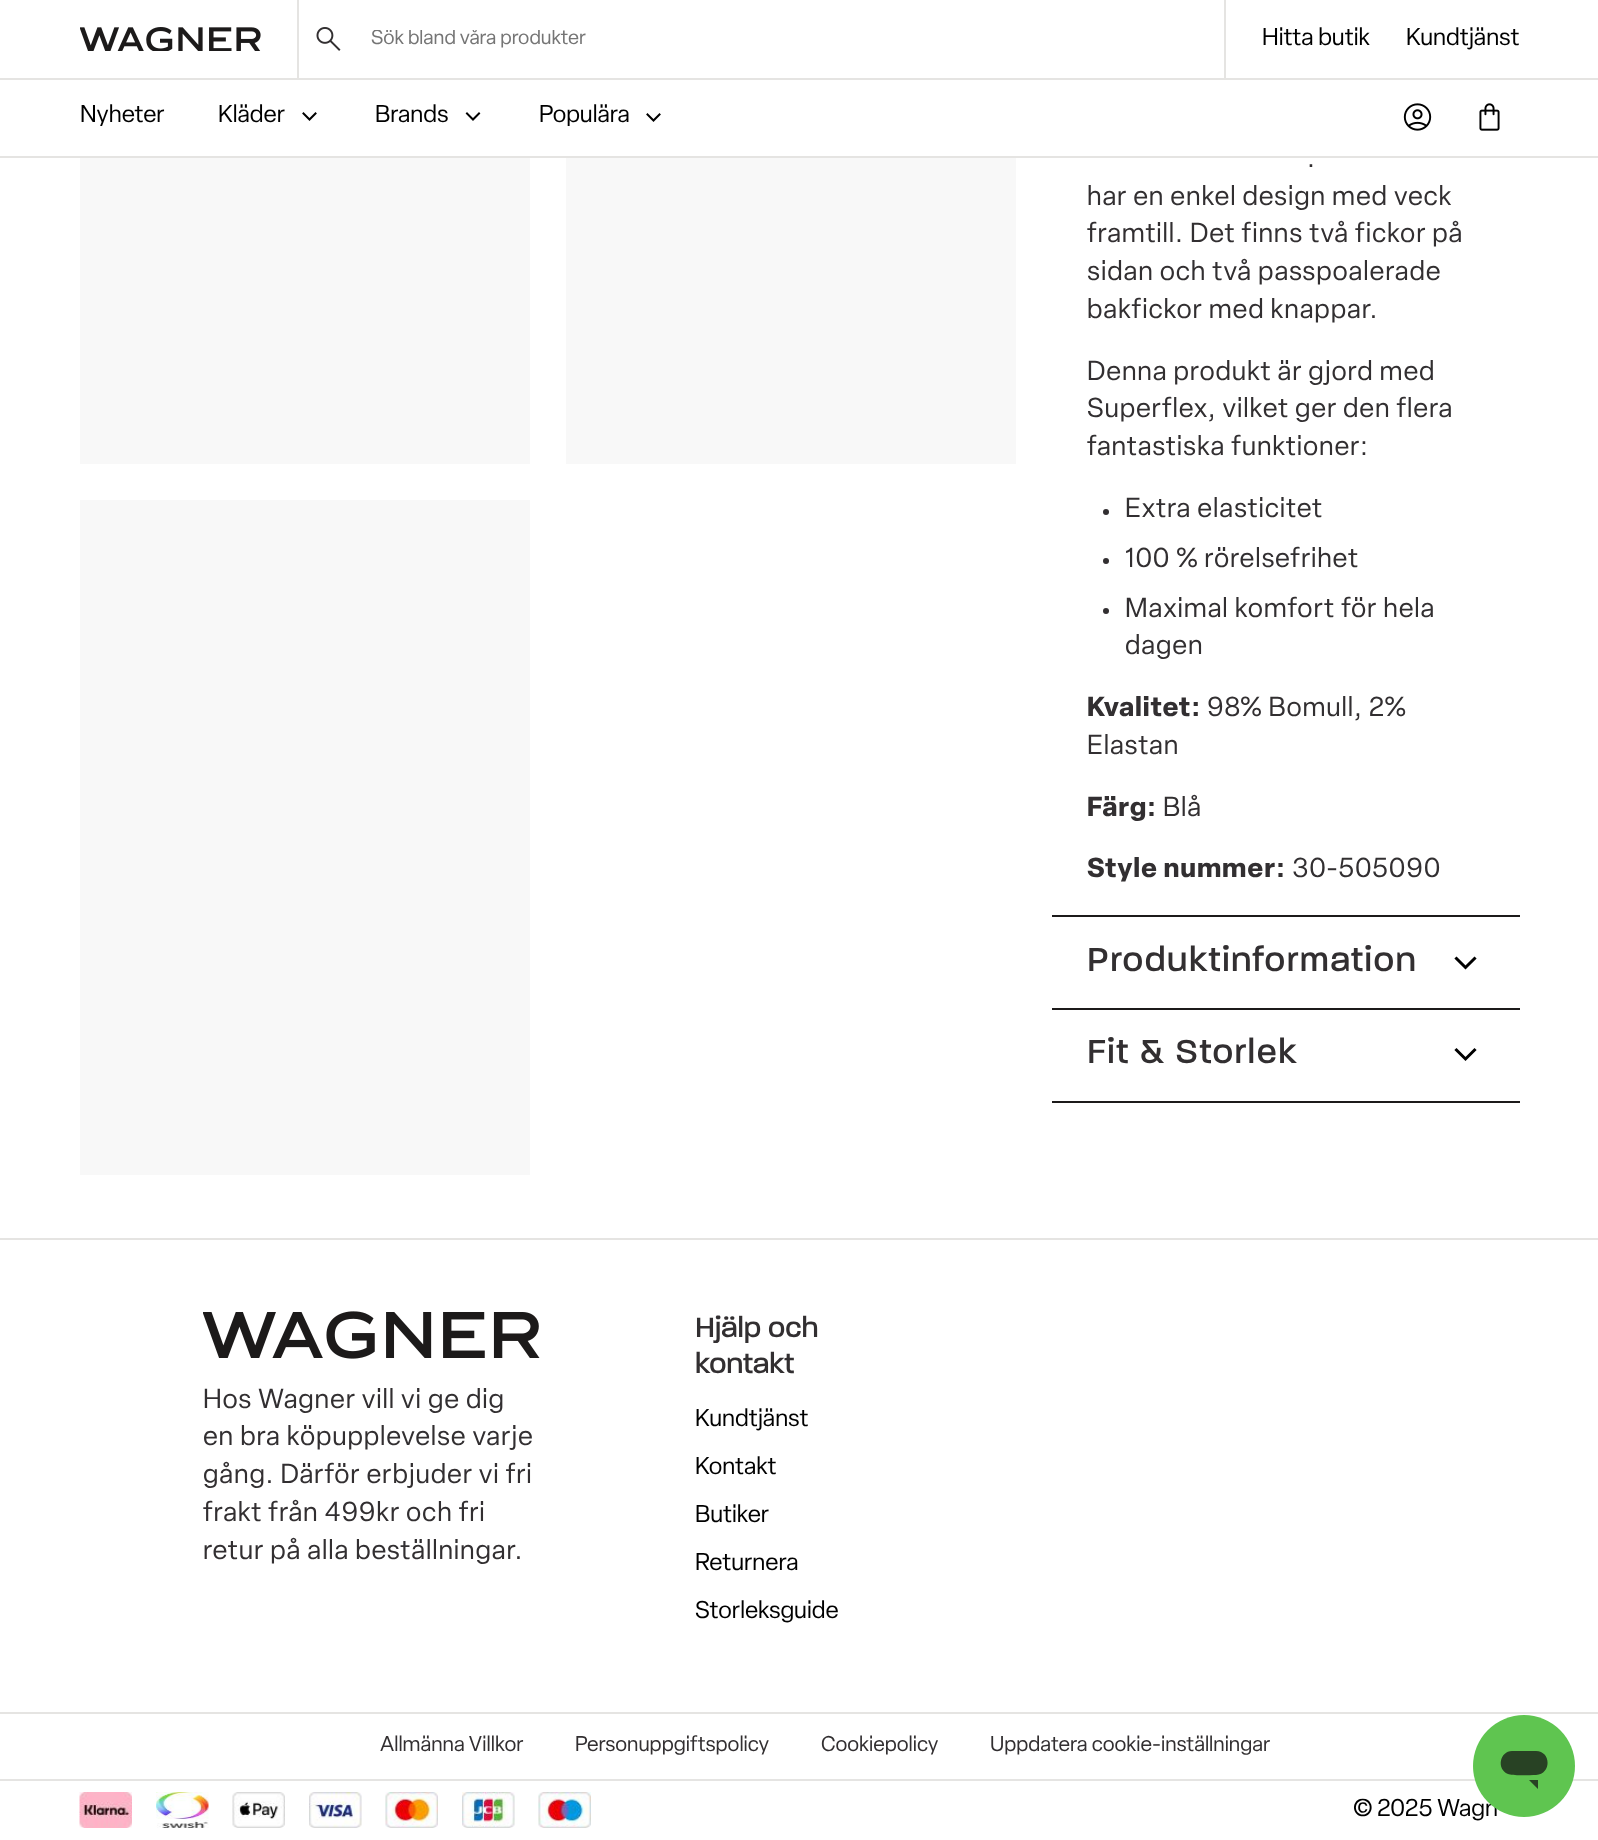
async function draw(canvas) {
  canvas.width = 1598;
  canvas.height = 1840;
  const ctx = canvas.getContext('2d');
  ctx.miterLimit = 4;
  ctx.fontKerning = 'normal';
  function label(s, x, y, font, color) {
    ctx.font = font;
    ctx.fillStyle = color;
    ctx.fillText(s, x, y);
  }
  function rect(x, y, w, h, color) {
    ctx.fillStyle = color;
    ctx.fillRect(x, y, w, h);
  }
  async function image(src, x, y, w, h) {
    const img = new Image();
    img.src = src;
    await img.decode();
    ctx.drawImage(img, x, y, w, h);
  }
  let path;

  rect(0, 0, 1598, 1840, '#fff');
  rect(0, 156, 1598, 2, '#e5e4e2');
  await image('assets/img1.png', 80, 27, 181, 24);
  rect(1224, 0, 2, 78, '#e5e4e2');
  rect(297, 0, 2, 78, '#e5e4e2');
  await image('assets/img2.png', 316, 27, 25, 24);
  ctx.save();
  ctx.beginPath();
  ctx.rect(371, 30, 844, 20);
  ctx.clip();
  label('Sök bland våra produkter', 371, 44, '20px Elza', '#757575');
  ctx.restore();
  label('Hitta butik', 1262, 45, '24px Elza', '#000');
  label('Kundtjänst', 1406, 45, '24px Elza', '#000');
  rect(0, 78, 1598, 2, '#e5e4e2');
  label('Nyheter', 80, 122, '24px Elza', '#000');
  label('Kläder', 218, 122, '24px Elza', '#000');
  path = new Path2D('M303.5 113.5L309.5 119.5L315.5 113.5');
  ctx.strokeStyle = '#000';
  ctx.lineWidth = 2;
  ctx.lineCap = 'square';
  ctx.stroke(path);
  label('Brands', 375, 122, '24px Elza', '#000');
  path = new Path2D('M467 113.5L473 119.5L479 113.5');
  ctx.stroke(path);
  label('Populära', 539, 122, '24px Elza', '#000');
  path = new Path2D('M647.5 114.5L653.5 120.5L659.5 114.5');
  ctx.stroke(path);
  await image('assets/img3.png', 1403, 103, 29, 28);
  await image('assets/img4.png', 1479, 103, 21, 28);
  rect(80, 158, 450, 306, '#f8f8f8');
  rect(566, 158, 450, 306, '#f8f8f8');
  rect(80, 500, 450, 675, '#f8f8f8');
  ctx.letterSpacing = '0.85px';
  label('.', 1307, 167, '27px Elza', '#322f31');
  label('har en enkel design med veck', 1087, 205, '27px Elza', '#322f31');
  label('framtill. Det finns två fickor på', 1087, 242, '27px Elza', '#322f31');
  label('sidan och två passpoalerade', 1087, 280, '27px Elza', '#322f31');
  label('bakfickor med knappar.', 1087, 318, '27px Elza', '#322f31');
  label('Denna produkt är gjord med', 1087, 380, '27px Elza', '#322f31');
  label('Superflex, vilket ger den flera', 1087, 417, '27px Elza', '#322f31');
  label('fantastiska funktioner:', 1087, 455, '27px Elza', '#322f31');
  ctx.beginPath();
  ctx.arc(1106, 512, 3, 0, 2 * Math.PI);
  ctx.fill();
  label('Extra elasticitet', 1125, 517, '27px Elza', '#322f31');
  ctx.beginPath();
  ctx.arc(1106, 561, 3, 0, 2 * Math.PI);
  ctx.fill();
  label('100 % rörelsefrihet', 1125, 567, '27px Elza', '#322f31');
  ctx.beginPath();
  ctx.arc(1106, 611, 3, 0, 2 * Math.PI);
  ctx.fill();
  label('Maximal komfort för hela', 1125, 617, '27px Elza', '#322f31');
  label('dagen', 1125, 654, '27px Elza', '#322f31');
  label('Kvalitet:', 1087, 716, 'bold 27px Elza', '#322f31');
  label('98% Bomull, 2%', 1207, 716, '27px Elza', '#322f31');
  label('Elastan', 1087, 754, '27px Elza', '#322f31');
  label('Färg:', 1087, 816, 'bold 27px Elza', '#322f31');
  label('Blå', 1163, 816, '27px Elza', '#322f31');
  label('Style nummer:', 1087, 877, 'bold 27px Elza', '#322f31');
  label('30-505090', 1292, 877, '27px Elza', '#322f31');
  rect(1052, 915, 468, 2, '#1c1a1a');
  ctx.letterSpacing = '1.5px';
  label('Produktinformation', 1087, 971, '500 36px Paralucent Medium', '#322f31');
  path = new Path2D('M1456.5 958.5L1465.5 967.5L1474.5 958.5');
  ctx.lineWidth = 3;
  ctx.stroke(path);
  rect(1052, 1008, 468, 2, '#1c1a1a');
  rect(1052, 1101, 468, 2, '#1c1a1a');
  label('Fit & Storlek', 1087, 1063, '500 36px Paralucent Medium', '#322f31');
  path = new Path2D('M1456.5 1050L1465.5 1059L1474.5 1050');
  ctx.stroke(path);
  rect(0, 1238, 1598, 2, '#e5e4e2');
  await image('assets/img5.png', 203, 1311, 337, 48);
  ctx.letterSpacing = '0.85px';
  label('Hos Wagner vill vi ge dig', 203, 1408, '27px Elza', '#322f31');
  label('en bra köpupplevelse varje', 203, 1445, '27px Elza', '#322f31');
  label('gång. Därför erbjuder vi fri', 203, 1483, '27px Elza', '#322f31');
  label('frakt från 499kr och fri', 203, 1521, '27px Elza', '#322f31');
  label('retur på alla beställningar.', 203, 1559, '27px Elza', '#322f31');
  ctx.letterSpacing = '0px';
  label('Hjälp och', 695, 1337, '500 30px Paralucent Medium', '#322f31');
  label('kontakt', 695, 1373, '500 30px Paralucent Medium', '#322f31');
  label('Kundtjänst', 695, 1426, '24px Elza', '#000');
  label('Kontakt', 695, 1474, '24px Elza', '#000');
  label('Butiker', 695, 1522, '24px Elza', '#000');
  label('Returnera', 695, 1570, '24px Elza', '#000');
  label('Storleksguide', 695, 1618, '24px Elza', '#000');
  rect(0, 1712, 1598, 2, '#e5e4e2');
  label('Allmänna Villkor', 380, 1751, '21px Elza', '#322f31');
  label('Personuppgiftspolicy', 575, 1751, '21px Elza', '#322f31');
  label('Cookiepolicy', 821, 1751, '21px Elza', '#322f31');
  label('Uppdatera cookie-inställningar', 990, 1751, '21px Elza', '#322f31');
  rect(0, 1779, 1598, 2, '#e5e4e2');
  await image('assets/img6.png', 79, 1792, 53, 36);
  await image('assets/img7.png', 156, 1792, 53, 36);
  await image('assets/img8.png', 232, 1792, 53, 36);
  await image('assets/img9.png', 309, 1792, 53, 36);
  await image('assets/img10.png', 385, 1792, 53, 36);
  await image('assets/img11.png', 462, 1792, 53, 36);
  await image('assets/img12.png', 538, 1792, 53, 36);
  label('© 2025 Wagn', 1353, 1816, '24px Elza', '#000');
  ctx.fillStyle = '#5fc550';
  ctx.beginPath();
  ctx.arc(1524, 1766, 51, 0, 2 * Math.PI);
  ctx.fill();
  ctx.fillStyle = '#284224';
  path = new Path2D('M1529 1780L1538 1789V1780ZM1512 1751C1500 1751 1496 1769 1508 1774C1512 1776 1530 1775 1536 1775C1552 1774 1551 1751 1536 1751Z');
  ctx.fill(path);
}

draw(document.querySelector('canvas'));
